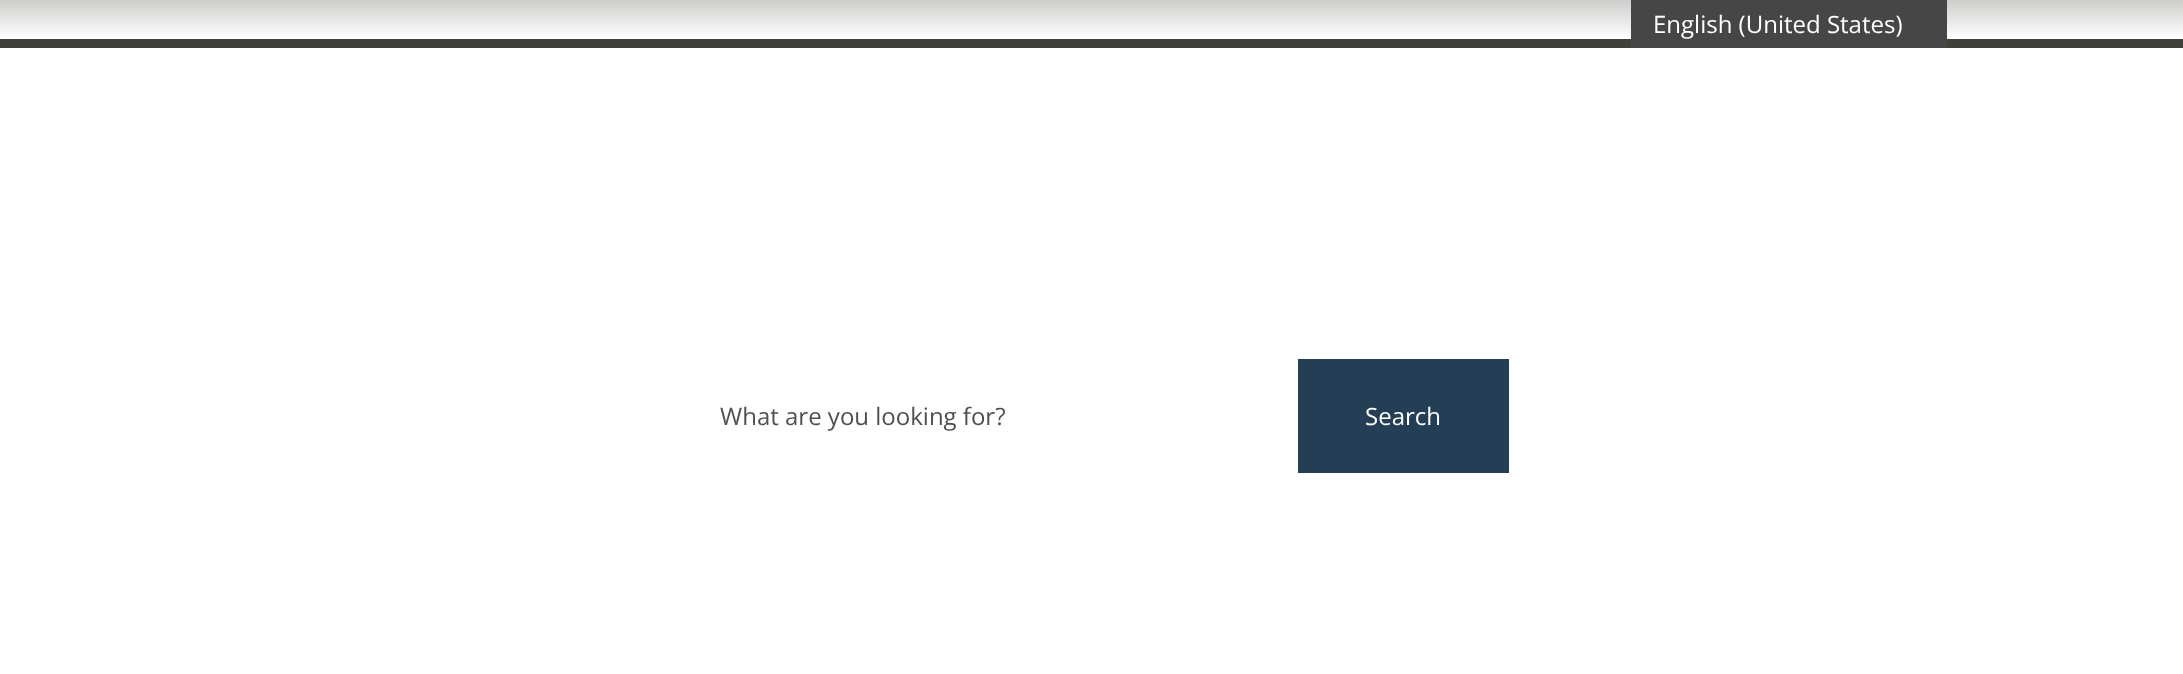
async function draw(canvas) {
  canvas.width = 2183;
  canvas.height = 674;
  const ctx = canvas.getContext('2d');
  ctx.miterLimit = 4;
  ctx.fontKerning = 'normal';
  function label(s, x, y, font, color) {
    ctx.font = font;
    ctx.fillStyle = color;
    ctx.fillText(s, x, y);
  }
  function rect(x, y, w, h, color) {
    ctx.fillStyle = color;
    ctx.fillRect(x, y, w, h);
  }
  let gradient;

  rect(0, 0, 2183, 674, '#fff');
  gradient = ctx.createLinearGradient(1092, 39, 1092, -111);
  gradient.addColorStop(0, '#fff');
  gradient.addColorStop(1, '#404139');
  ctx.fillStyle = gradient;
  ctx.fillRect(0, 0, 2183, 37);
  rect(0, 39, 2183, 9, '#404139');
  rect(1631, 0, 316, 48, '#464646');
  label('English (United States)', 1653, 33, '24px Open Sans', '#fff');
  label('What are you looking for?', 720, 425, '24px Open Sans', '#505050');
  rect(1298, 359, 211, 114, '#243e55');
  label('Search', 1365, 425, '24px Open Sans', '#fff');
}

draw(document.querySelector('canvas'));
